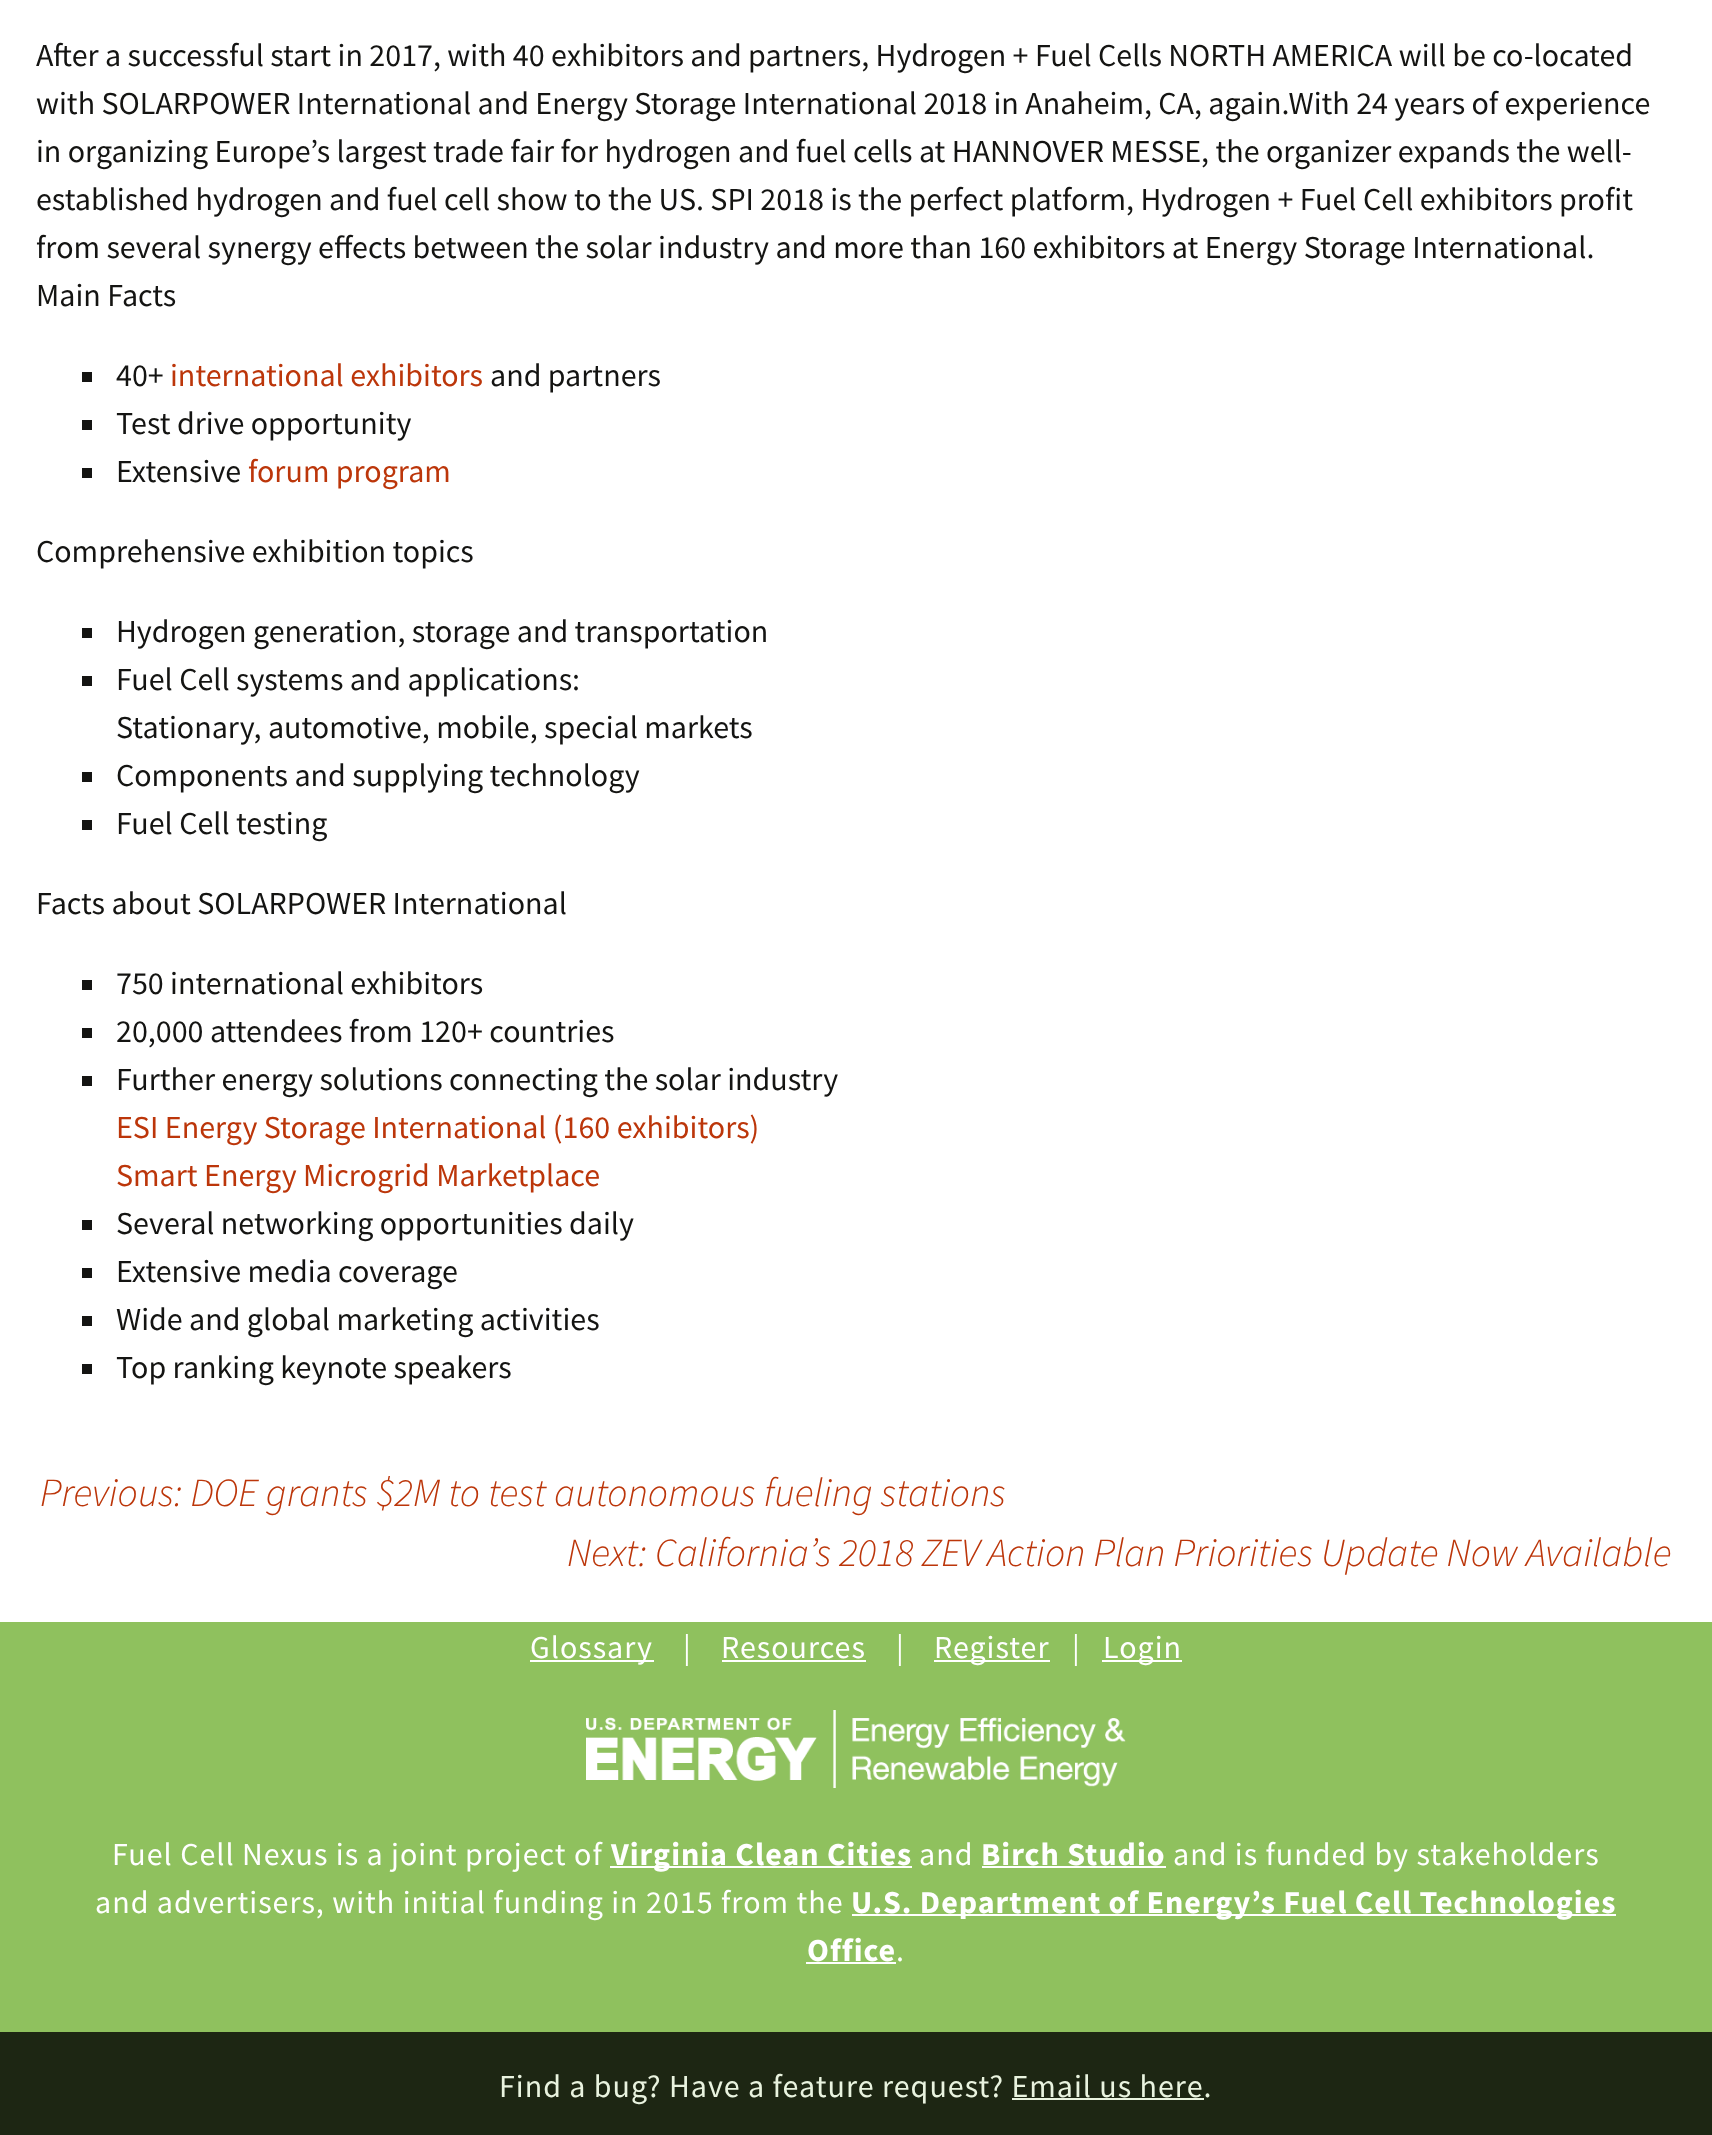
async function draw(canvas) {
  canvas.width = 1712;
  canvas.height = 2135;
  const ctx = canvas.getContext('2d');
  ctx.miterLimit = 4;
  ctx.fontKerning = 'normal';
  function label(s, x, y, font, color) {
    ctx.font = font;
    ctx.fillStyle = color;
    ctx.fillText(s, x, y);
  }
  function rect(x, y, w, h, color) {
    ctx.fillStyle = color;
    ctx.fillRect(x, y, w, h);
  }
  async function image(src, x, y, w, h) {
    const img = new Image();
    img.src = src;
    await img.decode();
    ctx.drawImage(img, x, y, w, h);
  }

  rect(0, 0, 1712, 2135, '#fff');
  label('After a successful start in 2017, with 40 exhibitors and partners, Hydrogen + Fuel Cells NORTH AMERICA will be co-located', 36, 66, '32px Source Sans Pro', '#141412');
  label('with SOLARPOWER International and Energy Storage International 2018 in Anaheim, CA, again.With 24 years of experience', 36, 114, '32px Source Sans Pro', '#141412');
  label('in organizing Europe’s largest trade fair for hydrogen and fuel cells at HANNOVER MESSE, the organizer expands the well-', 36, 162, '32px Source Sans Pro', '#141412');
  label('established hydrogen and fuel cell show to the US. SPI 2018 is the perfect platform, Hydrogen + Fuel Cell exhibitors profit', 36, 210, '32px Source Sans Pro', '#141412');
  label('from several synergy effects between the solar industry and more than 160 exhibitors at Energy Storage International.', 36, 258, '32px Source Sans Pro', '#141412');
  label('Main Facts', 36, 306, '32px Source Sans Pro', '#141412');
  rect(82, 372, 10, 10, '#141412');
  label('40+', 116, 386, '32px Source Sans Pro', '#141412');
  label('international exhibitors', 170, 386, '32px Source Sans Pro', '#bc360a');
  label('and partners', 490, 386, '32px Source Sans Pro', '#141412');
  rect(82, 420, 10, 10, '#141412');
  label('Test drive opportunity', 116, 434, '32px Source Sans Pro', '#141412');
  rect(82, 468, 10, 10, '#141412');
  label('Extensive', 116, 482, '32px Source Sans Pro', '#141412');
  label('forum program', 248, 482, '32px Source Sans Pro', '#bc360a');
  label('Comprehensive exhibition topics', 36, 562, '32px Source Sans Pro', '#141412');
  rect(82, 628, 10, 10, '#141412');
  label('Hydrogen generation, storage and transportation', 116, 642, '32px Source Sans Pro', '#141412');
  rect(82, 676, 10, 10, '#141412');
  label('Fuel Cell systems and applications:', 116, 690, '32px Source Sans Pro', '#141412');
  label('Stationary, automotive, mobile, special markets', 116, 738, '32px Source Sans Pro', '#141412');
  rect(82, 772, 10, 10, '#141412');
  label('Components and supplying technology', 116, 786, '32px Source Sans Pro', '#141412');
  rect(82, 820, 10, 10, '#141412');
  label('Fuel Cell testing', 116, 834, '32px Source Sans Pro', '#141412');
  label('Facts about SOLARPOWER International', 36, 914, '32px Source Sans Pro', '#141412');
  rect(82, 980, 10, 10, '#141412');
  label('750 international exhibitors', 116, 994, '32px Source Sans Pro', '#141412');
  rect(82, 1028, 10, 10, '#141412');
  label('20,000 attendees from 120+ countries', 116, 1042, '32px Source Sans Pro', '#141412');
  rect(82, 1076, 10, 10, '#141412');
  label('Further energy solutions connecting the solar industry', 116, 1090, '32px Source Sans Pro', '#141412');
  label('ESI Energy Storage International (160 exhibitors)', 116, 1138, '32px Source Sans Pro', '#bc360a');
  label('Smart Energy Microgrid Marketplace', 116, 1186, '32px Source Sans Pro', '#bc360a');
  rect(82, 1220, 10, 10, '#141412');
  label('Several networking opportunities daily', 116, 1234, '32px Source Sans Pro', '#141412');
  rect(82, 1268, 10, 10, '#141412');
  label('Extensive media coverage', 116, 1282, '32px Source Sans Pro', '#141412');
  rect(82, 1316, 10, 10, '#141412');
  label('Wide and global marketing activities', 116, 1330, '32px Source Sans Pro', '#141412');
  rect(82, 1364, 10, 10, '#141412');
  label('Top ranking keynote speakers', 116, 1378, '32px Source Sans Pro', '#141412');
  label('Previous: DOE grants $2M to test autonomous fueling stations', 40, 1506, 'italic 300 40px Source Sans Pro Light', '#bc360a');
  label('Next: California’s 2018 ZEV Action Plan Priorities Update Now Available', 567, 1566, 'italic 300 40px Source Sans Pro Light', '#bc360a');
  rect(0, 1622, 1712, 410, '#8fc15e');
  rect(530, 1660, 124, 2, '#fff');
  ctx.letterSpacing = '1px';
  label('Glossary', 530, 1658, '32px Source Sans Pro', '#fff');
  label('|', 683, 1658, '32px Source Sans Pro', '#fff');
  label('Resources', 721, 1658, '32px Source Sans Pro', '#fff');
  rect(722, 1660, 144, 2, '#fff');
  label('|', 896, 1658, '32px Source Sans Pro', '#fff');
  rect(934, 1660, 116, 2, '#fff');
  label('Register', 934, 1658, '32px Source Sans Pro', '#fff');
  label('|', 1072, 1658, '32px Source Sans Pro', '#fff');
  rect(1102, 1660, 80, 2, '#fff');
  label('Login', 1103, 1658, '32px Source Sans Pro', '#fff');
  await image('assets/img1.png', 586, 1710, 540, 78);
  label('Fuel Cell Nexus is a joint project of', 112, 1865, '32px Source Sans Pro', '#fff');
  rect(610, 1866, 302, 2, '#fff');
  label('Virginia Clean Cities', 611, 1865, 'bold 32px Source Sans Pro', '#fff');
  label('and', 919, 1865, '32px Source Sans Pro', '#fff');
  label('Birch Studio', 981, 1865, 'bold 32px Source Sans Pro', '#fff');
  rect(982, 1866, 184, 2, '#fff');
  label('and is funded by stakeholders', 1173, 1865, '32px Source Sans Pro', '#fff');
  label('and advertisers, with initial funding in 2015 from the', 95, 1913, '32px Source Sans Pro', '#fff');
  rect(852, 1914, 764, 2, '#fff');
  label('U.S. Department of Energy’s Fuel Cell Technologies', 851, 1913, 'bold 32px Source Sans Pro', '#fff');
  label('Office', 807, 1961, 'bold 32px Source Sans Pro', '#fff');
  rect(806, 1962, 90, 2, '#fff');
  label('.', 896, 1961, '32px Source Sans Pro', '#fff');
  rect(0, 2032, 1712, 103, '#1d2613');
  label('Find a bug? Have a feature request? Email us here.', 499, 2097, '32px Source Sans Pro', '#e9f3df');
  rect(1012, 2098, 192, 2, '#e9f3df');
}

draw(document.querySelector('canvas'));
